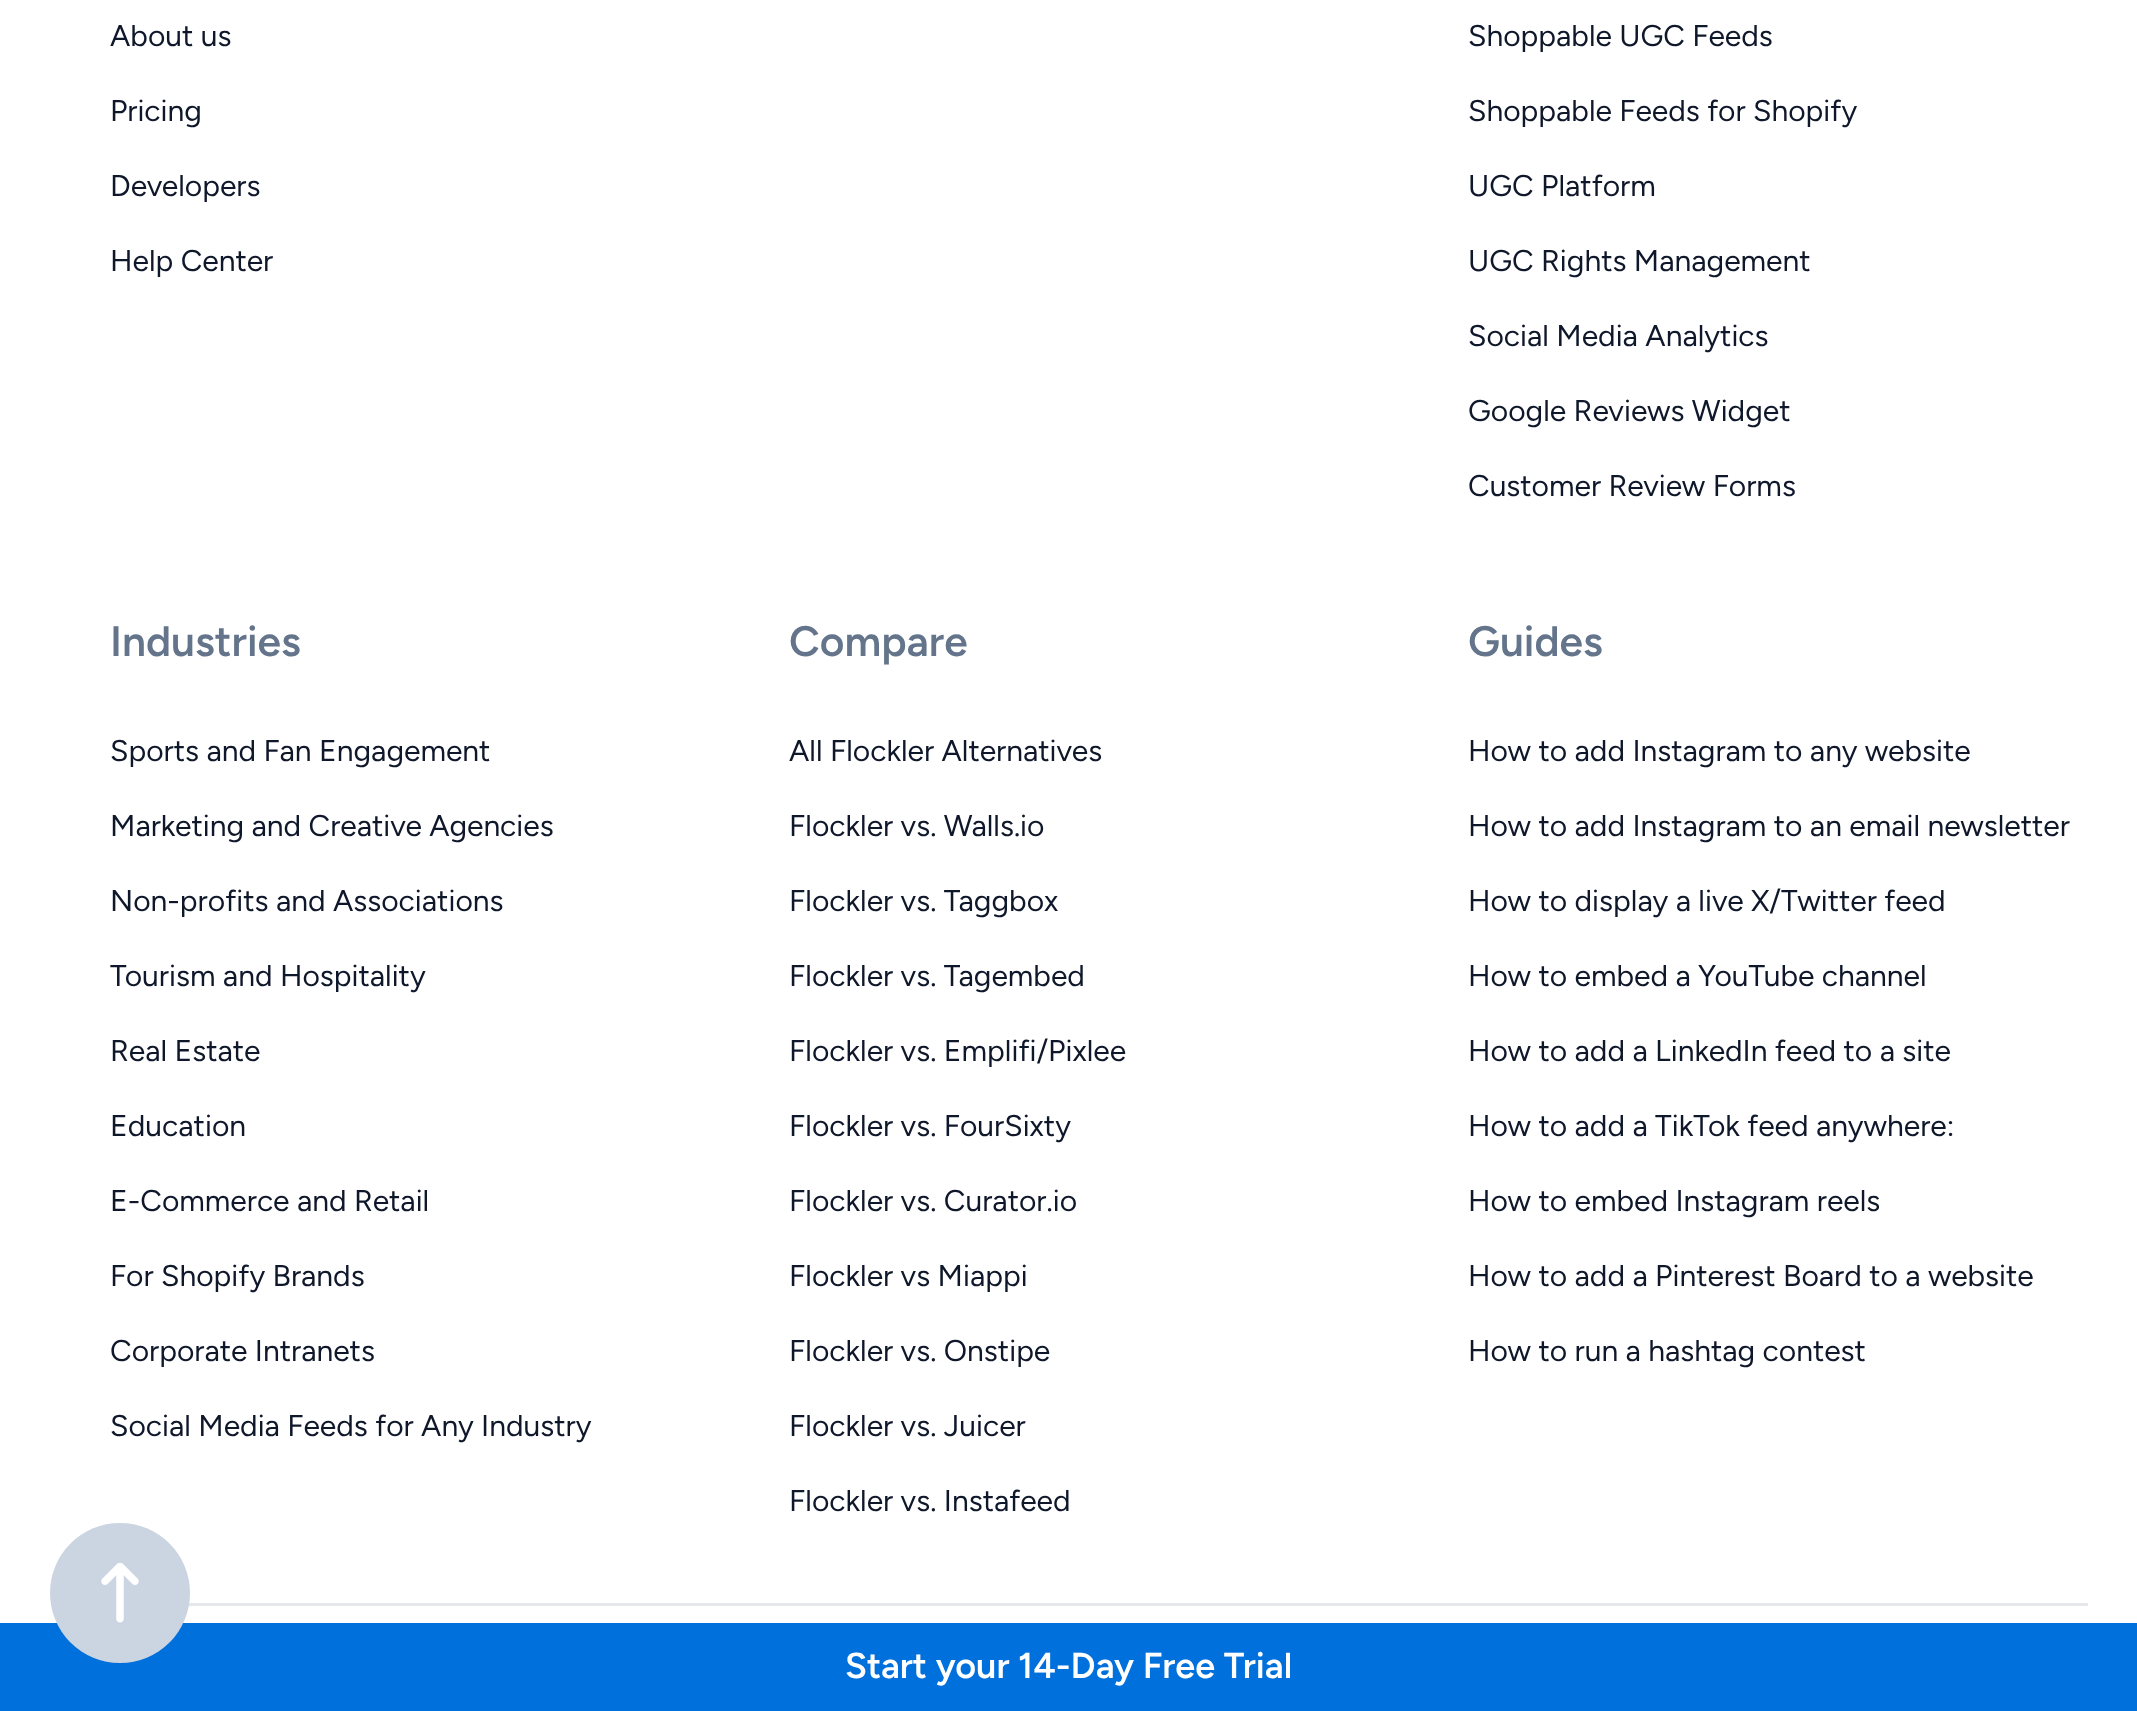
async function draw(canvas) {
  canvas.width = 2137;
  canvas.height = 1711;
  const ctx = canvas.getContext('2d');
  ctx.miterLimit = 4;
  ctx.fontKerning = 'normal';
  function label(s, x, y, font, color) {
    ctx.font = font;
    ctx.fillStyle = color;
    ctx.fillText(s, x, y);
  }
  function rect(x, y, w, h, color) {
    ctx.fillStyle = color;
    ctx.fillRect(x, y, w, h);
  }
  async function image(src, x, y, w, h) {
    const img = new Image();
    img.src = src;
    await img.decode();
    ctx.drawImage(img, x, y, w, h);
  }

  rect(0, 0, 2137, 1711, '#fff');
  label('About us', 110, 46, '30px Figtree', '#0f172a');
  label('Pricing', 110, 121, '30px Figtree', '#0f172a');
  label('Developers', 110, 196, '30px Figtree', '#0f172a');
  label('Help Center', 110, 271, '30px Figtree', '#0f172a');
  label('Shoppable UGC Feeds', 1468, 46, '30px Figtree', '#0f172a');
  label('Shoppable Feeds for Shopify', 1468, 121, '30px Figtree', '#0f172a');
  label('UGC Platform', 1468, 196, '30px Figtree', '#0f172a');
  label('UGC Rights Management', 1468, 271, '30px Figtree', '#0f172a');
  label('Social Media Analytics', 1468, 346, '30px Figtree', '#0f172a');
  label('Google Reviews Widget', 1468, 421, '30px Figtree', '#0f172a');
  label('Customer Review Forms', 1468, 496, '30px Figtree', '#0f172a');
  label('Industries', 110, 656, '600 42.5px Figtree', '#64748b');
  label('Sports and Fan Engagement', 110, 761, '30px Figtree', '#0f172a');
  label('Marketing and Creative Agencies', 110, 836, '30px Figtree', '#0f172a');
  label('Non-profits and Associations', 110, 911, '30px Figtree', '#0f172a');
  label('Tourism and Hospitality', 110, 986, '30px Figtree', '#0f172a');
  label('Real Estate', 110, 1061, '30px Figtree', '#0f172a');
  label('Education', 110, 1136, '30px Figtree', '#0f172a');
  label('E-Commerce and Retail', 110, 1211, '30px Figtree', '#0f172a');
  label('For Shopify Brands', 110, 1286, '30px Figtree', '#0f172a');
  label('Corporate Intranets', 110, 1361, '30px Figtree', '#0f172a');
  label('Social Media Feeds for Any Industry', 110, 1436, '30px Figtree', '#0f172a');
  label('Compare', 789, 656, '600 42.5px Figtree', '#64748b');
  label('All Flockler Alternatives', 789, 761, '30px Figtree', '#0f172a');
  label('Flockler vs. Walls.io', 789, 836, '30px Figtree', '#0f172a');
  label('Flockler vs. Taggbox', 789, 911, '30px Figtree', '#0f172a');
  label('Flockler vs. Tagembed', 789, 986, '30px Figtree', '#0f172a');
  label('Flockler vs. Emplifi/Pixlee', 789, 1061, '30px Figtree', '#0f172a');
  label('Flockler vs. FourSixty', 789, 1136, '30px Figtree', '#0f172a');
  label('Flockler vs. Curator.io', 789, 1211, '30px Figtree', '#0f172a');
  label('Flockler vs Miappi', 789, 1286, '30px Figtree', '#0f172a');
  label('Flockler vs. Onstipe', 789, 1361, '30px Figtree', '#0f172a');
  label('Flockler vs. Juicer', 789, 1436, '30px Figtree', '#0f172a');
  label('Flockler vs. Instafeed', 789, 1511, '30px Figtree', '#0f172a');
  label('Guides', 1468, 656, '600 42.5px Figtree', '#64748b');
  label('How to add Instagram to any website', 1468, 761, '30px Figtree', '#0f172a');
  label('How to add Instagram to an email newsletter', 1468, 836, '30px Figtree', '#0f172a');
  label('How to display a live X/Twitter feed', 1468, 911, '30px Figtree', '#0f172a');
  label('How to embed a YouTube channel', 1468, 986, '30px Figtree', '#0f172a');
  label('How to add a LinkedIn feed to a site', 1468, 1061, '30px Figtree', '#0f172a');
  label('How to add a TikTok feed anywhere:', 1468, 1136, '30px Figtree', '#0f172a');
  label('How to embed Instagram reels', 1468, 1211, '30px Figtree', '#0f172a');
  label('How to add a Pinterest Board to a website', 1468, 1286, '30px Figtree', '#0f172a');
  label('How to run a hashtag contest', 1468, 1361, '30px Figtree', '#0f172a');
  rect(188, 1603, 1900, 3, '#e5e7eb');
  rect(0, 1623, 2137, 88, '#0070dd');
  ctx.fillStyle = '#cbd5e1';
  ctx.beginPath();
  ctx.arc(120, 1593, 70, 0, 2 * Math.PI);
  ctx.fill();
  await image('assets/img1.png', 101, 1563, 38, 60);
  label('Start your 14-Day Free Trial', 845, 1678, '600 36px Figtree', '#fff');
}

draw(document.querySelector('canvas'));
